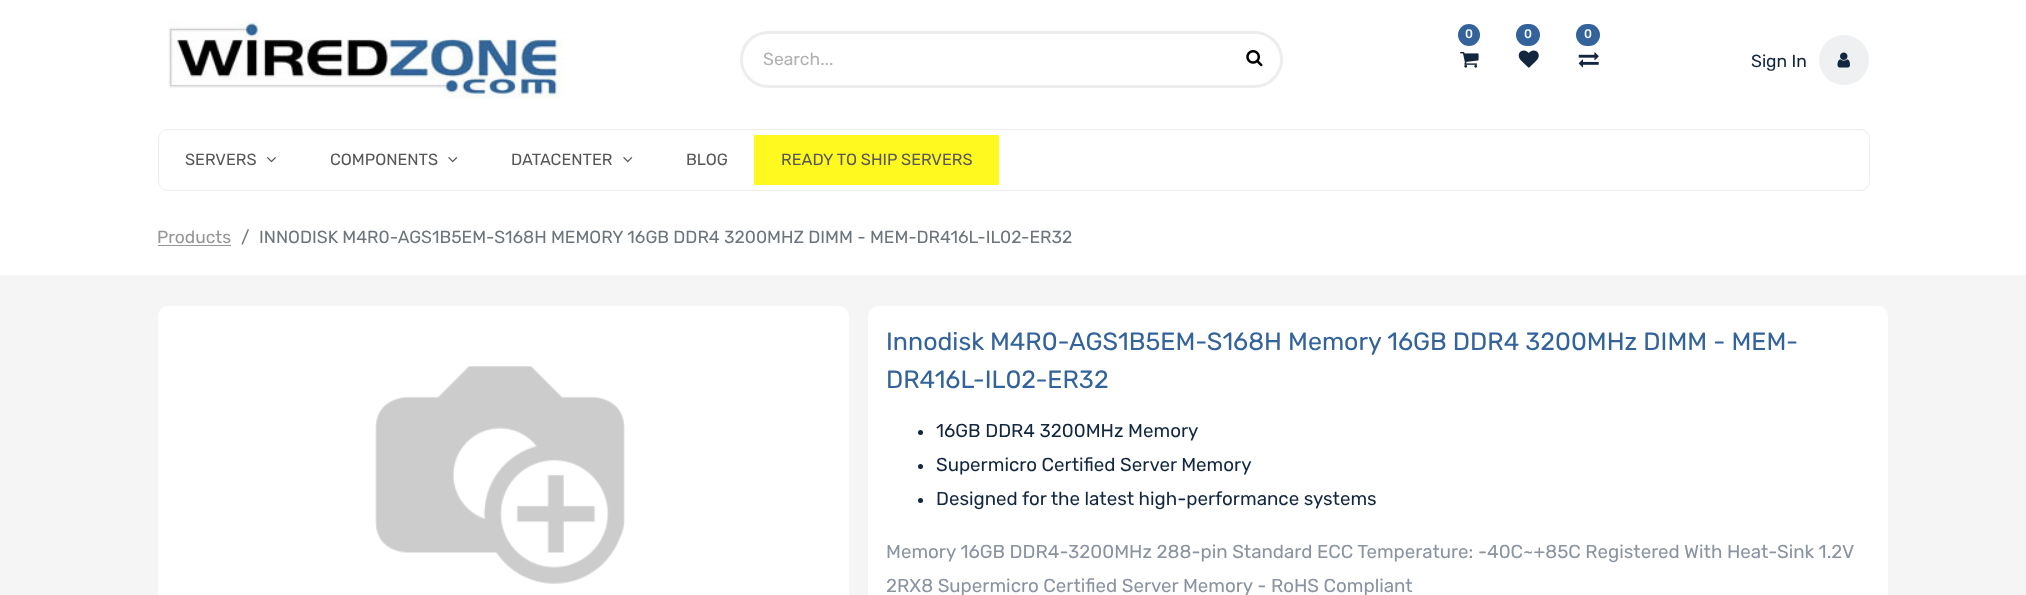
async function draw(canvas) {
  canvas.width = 2026;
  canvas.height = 595;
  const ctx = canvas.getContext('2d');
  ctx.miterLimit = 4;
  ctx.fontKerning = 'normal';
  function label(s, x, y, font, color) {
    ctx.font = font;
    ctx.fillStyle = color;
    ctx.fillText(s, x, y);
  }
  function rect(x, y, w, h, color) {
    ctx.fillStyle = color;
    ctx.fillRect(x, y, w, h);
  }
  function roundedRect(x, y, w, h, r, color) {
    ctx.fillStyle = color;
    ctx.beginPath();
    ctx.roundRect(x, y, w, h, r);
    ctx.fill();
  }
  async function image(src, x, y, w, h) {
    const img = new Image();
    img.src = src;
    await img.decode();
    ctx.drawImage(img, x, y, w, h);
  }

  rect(0, 0, 2026, 595, '#f5f5f5');
  rect(0, 0, 2026, 119, '#fff');
  await image('assets/img1.png', 168, 20, 397, 79);
  ctx.fillStyle = '#33639a';
  ctx.beginPath();
  ctx.arc(1469, 35, 11, 0, 2 * Math.PI);
  ctx.fill();
  label('0', 1465, 38, 'bold 12px Rubik', '#fff');
  await image('assets/img2.png', 1460, 51, 19, 17);
  roundedRect(1516, 24, 24, 22, 11, '#33639a');
  label('0', 1524, 38, 'bold 12px Rubik', '#fff');
  await image('assets/img3.png', 1518, 50, 21, 18);
  roundedRect(1576, 24, 24, 22, 11, '#33639a');
  label('0', 1584, 38, 'bold 12px Rubik', '#fff');
  await image('assets/img4.png', 1578, 52, 21, 16);
  ctx.beginPath();
  ctx.roundRect(741.5, 32.5, 540, 54, 27);
  ctx.strokeStyle = '#ededed';
  ctx.lineWidth = 3;
  ctx.stroke();
  label('Search...', 763, 65, '300 17.5px Rubik', '#b1b1b1');
  await image('assets/img5.png', 1246, 50, 17, 17);
  label('Sign In', 1751, 67, '300 17.5px Rubik', '#13263f');
  ctx.fillStyle = '#eef0f1';
  ctx.beginPath();
  ctx.arc(1844, 60, 25, 0, 2 * Math.PI);
  ctx.fill();
  await image('assets/img6.png', 1837, 52, 13, 16);
  rect(0, 119, 2026, 156, '#fff');
  ctx.beginPath();
  ctx.roundRect(158.5, 129.5, 1711, 61, 9.5);
  ctx.lineWidth = 1;
  ctx.stroke();
  label('SERVERS', 185, 165, '300 16.25px Rubik', '#575757');
  await image('assets/img7.png', 267, 157, 9, 6);
  label('COMPONENTS', 330, 165, '300 16.25px Rubik', '#575757');
  await image('assets/img8.png', 448, 157, 10, 6);
  label('DATACENTER', 511, 165, '300 16.25px Rubik', '#575757');
  await image('assets/img8.png', 623, 157, 10, 6);
  label('BLOG', 686, 165, '300 16.25px Rubik', '#575757');
  rect(754, 135, 245, 50, '#fff91f');
  label('READY TO SHIP SERVERS', 781, 165, '300 16.25px Rubik', '#575757');
  label('Products', 157, 243, '300 17.5px Rubik', '#969696');
  rect(158, 245, 73, 1, '#969696');
  label('/', 241, 243, '300 17.5px Rubik', '#6c757d');
  label('INNODISK M4R0-AGS1B5EM-S168H MEMORY 16GB DDR4 3200MHZ DIMM - MEM-DR416L-IL02-ER32', 259, 243, '300 17.5px Rubik', '#6c757d');
  roundedRect(158, 306, 691, 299, 10, '#fff');
  await image('assets/img9.png', 375, 366, 250, 218);
  roundedRect(868, 306, 1020, 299, 10, '#fff');
  label('Innodisk M4R0-AGS1B5EM-S168H Memory 16GB DDR4 3200MHz DIMM - MEM-', 886, 350, '300 25px Rubik', '#33639a');
  label('DR416L-IL02-ER32', 886, 388, '300 25px Rubik', '#33639a');
  ctx.fillStyle = '#13263f';
  ctx.beginPath();
  ctx.arc(920.5, 432.5, 2.5, 0, 2 * Math.PI);
  ctx.fill();
  label('16GB DDR4 3200MHz Memory', 936, 437, '300 18.75px Rubik', '#13263f');
  ctx.beginPath();
  ctx.arc(920.5, 466.5, 2.5, 0, 2 * Math.PI);
  ctx.fill();
  label('Supermicro Certified Server Memory', 936, 471, '300 18.75px Rubik', '#13263f');
  ctx.beginPath();
  ctx.arc(920.5, 500.5, 2.5, 0, 2 * Math.PI);
  ctx.fill();
  label('Designed for the latest high-performance systems', 936, 505, '300 18.75px Rubik', '#13263f');
  label('Memory 16GB DDR4-3200MHz 288-pin Standard ECC Temperature: -40C~+85C Registered With Heat-Sink 1.2V', 886, 558, '300 18.75px Rubik', '#8b93a1');
  label('2RX8 Supermicro Certified Server Memory - RoHS Compliant', 886, 592, '300 18.75px Rubik', '#8b93a1');
}

draw(document.querySelector('canvas'));
